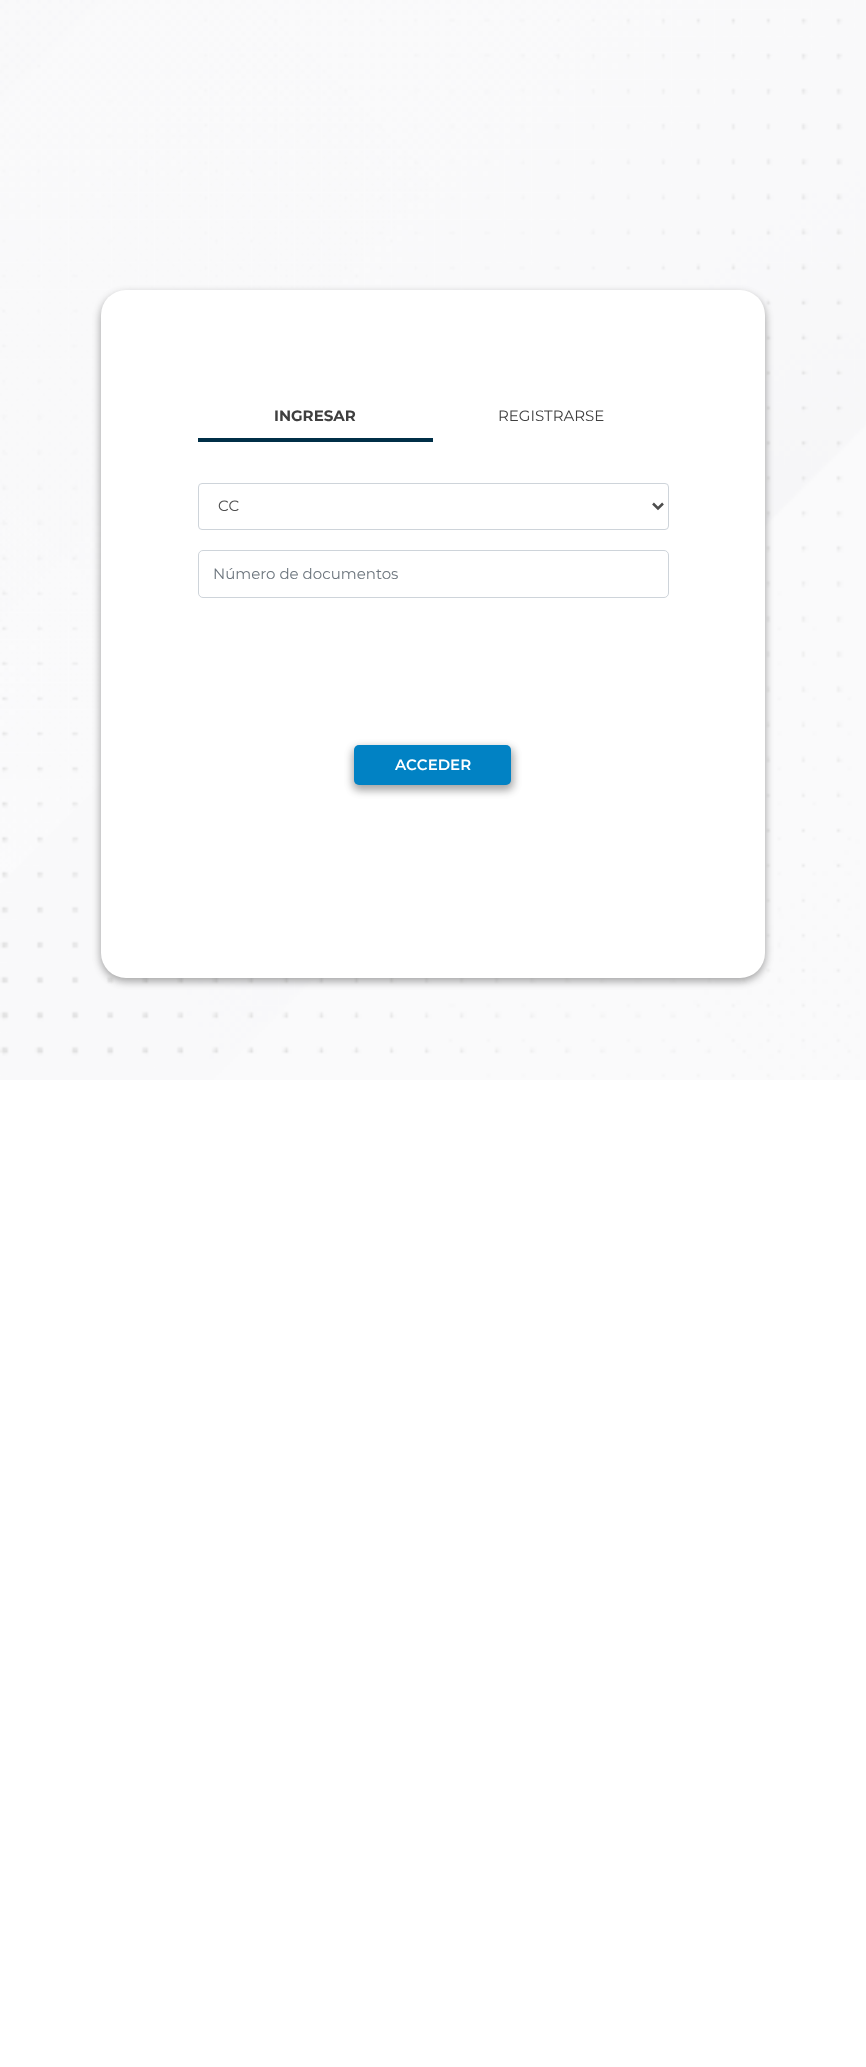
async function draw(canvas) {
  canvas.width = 866;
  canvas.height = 2067;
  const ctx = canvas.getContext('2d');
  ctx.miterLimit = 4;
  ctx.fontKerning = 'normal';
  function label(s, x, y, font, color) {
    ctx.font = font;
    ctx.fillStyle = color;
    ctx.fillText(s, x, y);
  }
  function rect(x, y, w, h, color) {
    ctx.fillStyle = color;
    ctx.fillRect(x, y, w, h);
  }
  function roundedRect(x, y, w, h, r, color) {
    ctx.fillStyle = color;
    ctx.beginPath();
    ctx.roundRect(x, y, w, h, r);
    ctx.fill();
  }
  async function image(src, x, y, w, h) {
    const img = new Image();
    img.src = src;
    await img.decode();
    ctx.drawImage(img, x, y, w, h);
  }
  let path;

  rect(0, 0, 866, 2067, '#fff');
  await image('assets/img1.png', 0, 0, 866, 1080);
  ctx.fillStyle = '#0000003b';
  ctx.filter = 'blur(4px)';
  ctx.beginPath();
  ctx.roundRect(101, 294, 664, 687, 25);
  ctx.fill();
  ctx.filter = 'none';
  ctx.fillStyle = '#00000029';
  ctx.filter = 'blur(4px)';
  ctx.beginPath();
  ctx.roundRect(101, 294, 664, 687, 25);
  ctx.fill();
  ctx.filter = 'none';
  roundedRect(101, 290, 664, 688, 25, '#fff');
  rect(198, 438, 235, 4, '#002f47');
  label('INGRESAR', 274, 421, 'bold 15px Montserrat', '#3f3f3f');
  label('REGISTRARSE', 498, 421, '15px Montserrat', '#3f3f3f');
  ctx.beginPath();
  ctx.roundRect(198.5, 483.5, 470, 46, 3.5);
  ctx.strokeStyle = '#ced4da';
  ctx.stroke();
  path = new Path2D('M653 503.5L658 508.5L663 503.5');
  ctx.strokeStyle = '#4d4d4d';
  ctx.lineWidth = 2.5;
  ctx.stroke(path);
  label('CC', 218, 511, '15px Montserrat', '#4d4d4d');
  ctx.beginPath();
  ctx.roundRect(198.5, 550.5, 470, 47, 4.5);
  ctx.strokeStyle = '#ced4da';
  ctx.lineWidth = 1;
  ctx.stroke();
  label('Número de documentos', 213, 579, '15px Montserrat', '#6c757d');
  ctx.fillStyle = '#0000003b';
  ctx.filter = 'blur(4px)';
  ctx.beginPath();
  ctx.roundRect(353, 748, 160, 42, 6);
  ctx.fill();
  ctx.filter = 'none';
  ctx.fillStyle = '#00000029';
  ctx.filter = 'blur(4px)';
  ctx.beginPath();
  ctx.roundRect(353, 748, 160, 42, 6);
  ctx.fill();
  ctx.filter = 'none';
  roundedRect(354, 745, 157, 40, 5, '#0182c4');
  label('ACCEDER', 395, 770, '600 15px Montserrat', '#fff');
}

draw(document.querySelector('canvas'));
